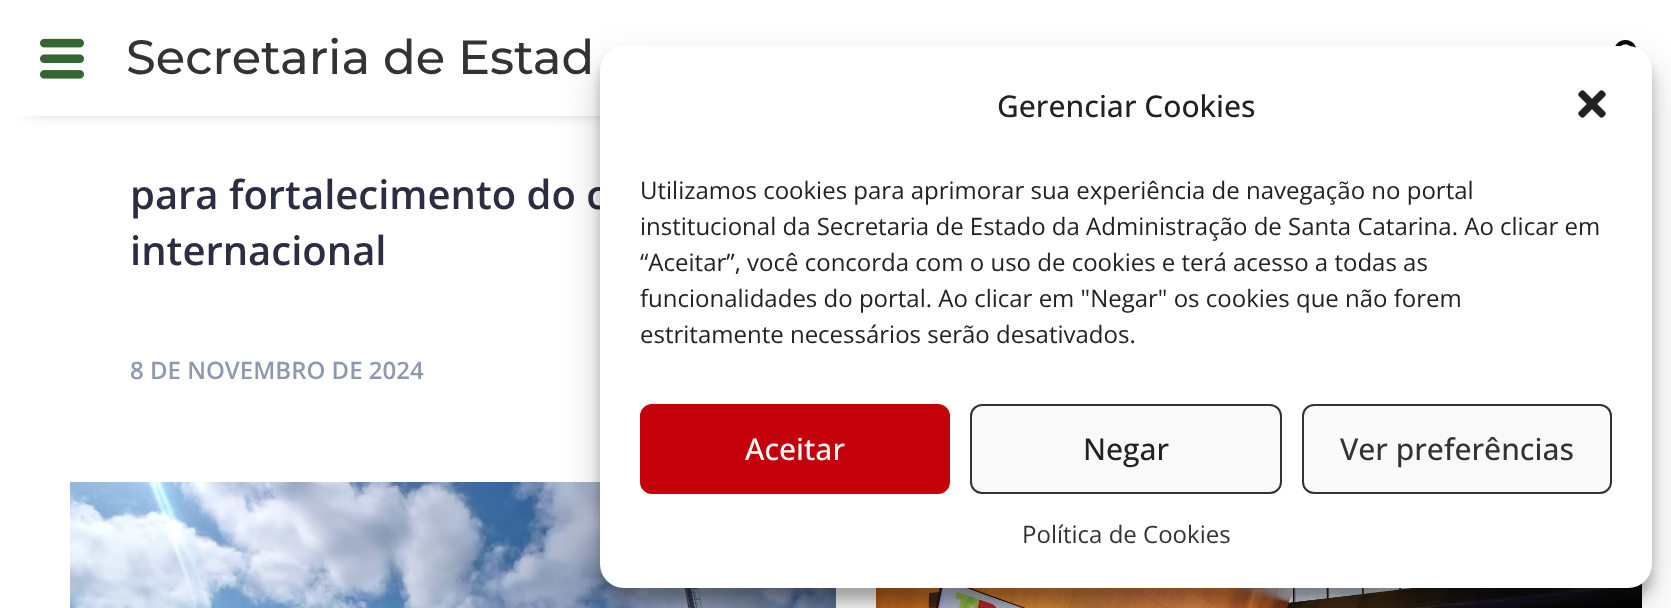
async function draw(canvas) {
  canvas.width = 1671;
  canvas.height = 608;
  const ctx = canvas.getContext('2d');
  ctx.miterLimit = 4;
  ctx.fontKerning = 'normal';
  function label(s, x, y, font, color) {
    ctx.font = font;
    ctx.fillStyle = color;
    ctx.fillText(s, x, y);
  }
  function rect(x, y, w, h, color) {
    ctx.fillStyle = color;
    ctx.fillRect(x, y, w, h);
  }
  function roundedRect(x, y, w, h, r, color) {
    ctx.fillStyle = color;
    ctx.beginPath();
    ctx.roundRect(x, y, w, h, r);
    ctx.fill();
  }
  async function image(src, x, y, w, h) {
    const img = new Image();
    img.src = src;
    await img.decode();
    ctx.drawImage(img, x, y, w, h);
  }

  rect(0, 0, 1671, 608, '#fff');
  ctx.fillStyle = '#00000080';
  ctx.filter = 'blur(10px)';
  ctx.beginPath();
  ctx.rect(30, 50, 1612, 56);
  ctx.fill();
  ctx.filter = 'none';
  rect(10, 29, 1652, 87, '#fff');
  await image('assets/img1.png', 40, 38, 44, 41);
  label('Secretaria de Estad', 126, 74, '500 48px Montserrat', '#333');
  await image('assets/img2.png', 1615, 40, 22, 8);
  label('para fortalecimento do c', 130, 209, '600 40px Open Sans', '#2b2d42');
  label('internacional', 130, 265, '600 40px Open Sans', '#2b2d42');
  label('8 DE NOVEMBRO DE 2024', 130, 379, '600 24px Open Sans', '#8d99ae');
  await image('assets/img3.png', 70, 482, 766, 126);
  await image('assets/img4.png', 876, 583, 766, 25);
  ctx.fillStyle = '#0000003b';
  ctx.filter = 'blur(6px)';
  ctx.beginPath();
  ctx.roundRect(600, 58, 1052, 542, 24);
  ctx.fill();
  ctx.filter = 'none';
  ctx.fillStyle = '#00000030';
  ctx.filter = 'blur(20px)';
  ctx.beginPath();
  ctx.roundRect(600, 66, 1052, 542, 24);
  ctx.fill();
  ctx.filter = 'none';
  roundedRect(600, 46, 1052, 542, 24, '#fff');
  label('Gerenciar Cookies', 997, 117, '500 30px Open Sans', '#222');
  await image('assets/img5.png', 1578, 90, 28, 28);
  label('Utilizamos cookies para aprimorar sua experiência de navegação no portal', 640, 199, '24px Open Sans', '#222');
  label('institucional da Secretaria de Estado da Administração de Santa Catarina. Ao clicar em', 640, 235, '24px Open Sans', '#222');
  label('“Aceitar”, você concorda com o uso de cookies e terá acesso a todas as', 640, 271, '24px Open Sans', '#222');
  label('funcionalidades do portal. Ao clicar em "Negar" os cookies que não forem', 640, 307, '24px Open Sans', '#222');
  label('estritamente necessários serão desativados.', 640, 343, '24px Open Sans', '#222');
  ctx.fillStyle = '#c4000b';
  ctx.beginPath();
  ctx.roundRect(641, 405, 308, 88, 11);
  ctx.fill();
  ctx.strokeStyle = '#c4000b';
  ctx.lineWidth = 2;
  ctx.stroke();
  label('Aceitar', 745, 460, '500 30px Open Sans', '#fff');
  ctx.fillStyle = '#f9f9f9';
  ctx.beginPath();
  ctx.roundRect(971, 405, 310, 88, 11);
  ctx.fill();
  ctx.strokeStyle = '#333';
  ctx.stroke();
  label('Negar', 1083, 460, '500 30px Open Sans', '#222');
  ctx.fillStyle = '#f9f9f9';
  ctx.beginPath();
  ctx.roundRect(1303, 405, 308, 88, 11);
  ctx.fill();
  ctx.stroke();
  label('Ver preferências', 1340, 460, '500 30px Open Sans', '#333');
  label('Política de Cookies', 1022, 543, '24px Open Sans', '#333');
}

draw(document.querySelector('canvas'));
